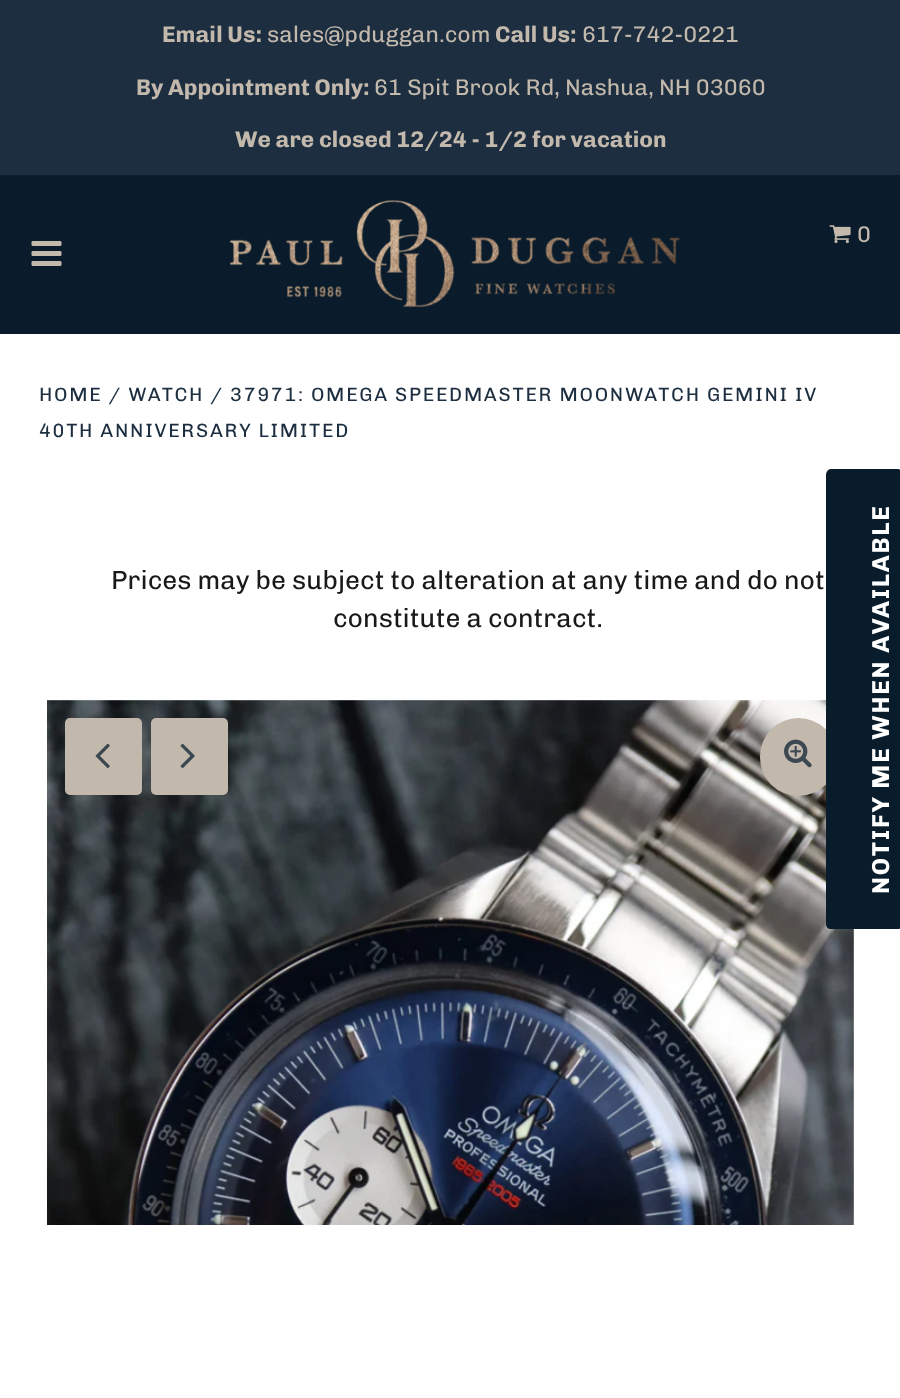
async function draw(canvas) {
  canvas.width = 900;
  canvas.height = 1398;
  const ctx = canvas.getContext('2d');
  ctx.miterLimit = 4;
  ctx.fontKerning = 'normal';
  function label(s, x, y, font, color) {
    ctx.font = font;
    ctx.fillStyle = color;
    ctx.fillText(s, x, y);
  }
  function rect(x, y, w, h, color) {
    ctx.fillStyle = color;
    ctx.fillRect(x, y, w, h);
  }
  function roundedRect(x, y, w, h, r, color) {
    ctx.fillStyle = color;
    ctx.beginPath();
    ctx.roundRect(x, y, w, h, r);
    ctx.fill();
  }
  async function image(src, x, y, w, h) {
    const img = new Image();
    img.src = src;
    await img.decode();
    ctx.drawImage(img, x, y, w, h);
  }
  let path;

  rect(0, 0, 900, 1398, '#fff');
  rect(0, 175, 900, 159, '#0a1c2b');
  rect(0, 0, 900, 175, '#1c2e3f');
  label('Email Us:', 162, 42, 'bold 22.75px Chivo', '#c2b8ac');
  label('sales@pduggan.com', 267, 42, '22.75px Chivo', '#c2b8ac');
  label('Call Us:', 495, 42, 'bold 22.75px Chivo', '#c2b8ac');
  label('617-742-0221', 582, 42, '22.75px Chivo', '#c2b8ac');
  label('By Appointment Only:', 136, 95, 'bold 22.75px Chivo', '#c2b8ac');
  label('61 Spit Brook Rd, Nashua, NH 03060', 374, 95, '22.75px Chivo', '#c2b8ac');
  label('We are closed 12/24 - 1/2 for vacation', 235, 147, 'bold 22.75px Chivo', '#c2b8ac');
  await image('assets/img1.png', 229, 200, 451, 108);
  await image('assets/img2.png', 829, 225, 22, 19);
  label('0', 857, 242, '22.75px Chivo', '#c2b8ac');
  await image('assets/img3.png', 31, 241, 31, 25);
  ctx.letterSpacing = '1.75px';
  label('HOME / WATCH / 37971: OMEGA SPEEDMASTER MOONWATCH GEMINI IV', 39, 401, '19.25px Chivo', '#1c2e3f');
  label('40TH ANNIVERSARY LIMITED', 39, 437, '19.25px Chivo', '#1c2e3f');
  ctx.letterSpacing = '0px';
  label('Prices may be subject to alteration at any time and do not', 111, 589, '26.25px Chivo', '#191919');
  label('constitute a contract.', 333, 627, '26.25px Chivo', '#191919');
  await image('assets/img4.png', 47, 700, 807, 525);
  roundedRect(760, 718, 77, 78, 38.5, '#c2b8ac');
  await image('assets/img5.png', 784, 739, 28, 29);
  roundedRect(65, 718, 77, 77, 5, '#c2b8ac');
  await image('assets/img6.png', 95, 743, 15, 26);
  roundedRect(151, 718, 77, 77, 5, '#c2b8ac');
  await image('assets/img7.png', 180, 743, 15, 26);
  ctx.fillStyle = '#091c2b';
  path = new Path2D('M826 924V475C826 472 828 469 831 469H898C900 469 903 472 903 475V924C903 927 900 929 898 929H831C828 929 826 927 826 924Z');
  ctx.fill(path);
  ctx.letterSpacing = '1.75px';
  ctx.font = 'bold 24.5px Chivo';
  ctx.fillStyle = '#fff';
  ctx.save();
  ctx.translate(889, 894);
  ctx.rotate(-90 * Math.PI / 180);
  ctx.fillText('NOTIFY ME WHEN AVAILABLE', 0, 0);
  ctx.restore();
}

draw(document.querySelector('canvas'));
